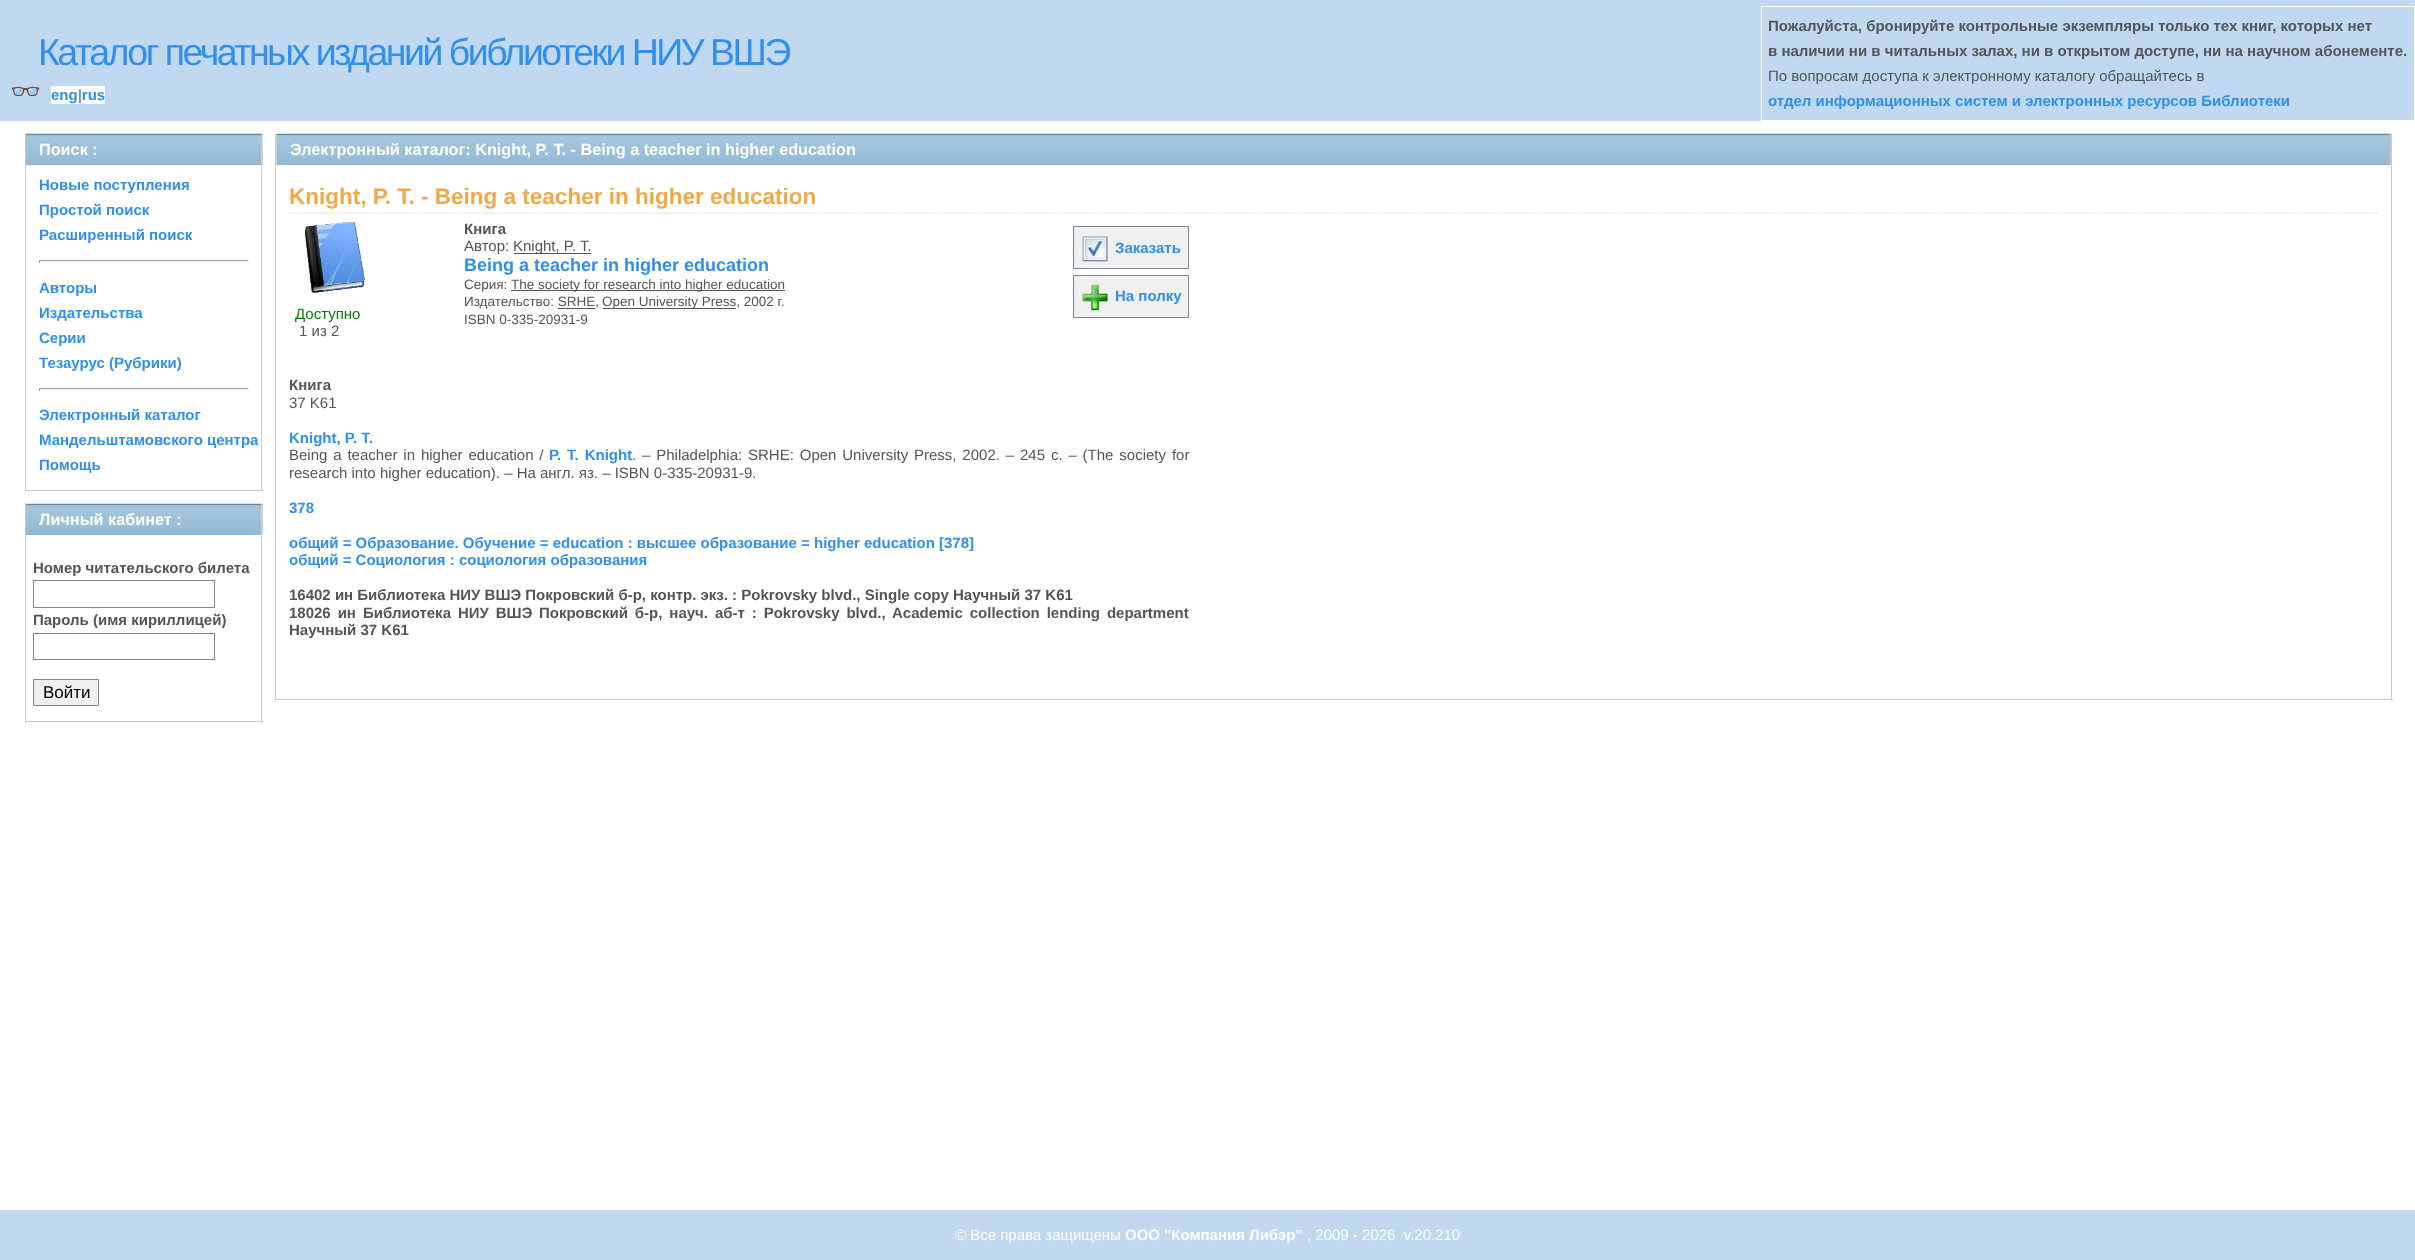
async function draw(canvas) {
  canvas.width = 2415;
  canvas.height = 1260;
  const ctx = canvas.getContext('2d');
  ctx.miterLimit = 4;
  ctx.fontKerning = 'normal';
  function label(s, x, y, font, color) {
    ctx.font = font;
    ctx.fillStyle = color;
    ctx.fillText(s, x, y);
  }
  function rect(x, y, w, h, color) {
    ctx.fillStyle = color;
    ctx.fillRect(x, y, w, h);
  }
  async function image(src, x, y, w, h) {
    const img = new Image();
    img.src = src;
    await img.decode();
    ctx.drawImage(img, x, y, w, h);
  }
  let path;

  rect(0, 0, 2415, 1260, '#fff');
  rect(0, 0, 2415, 121, '#c0d8f0');
  ctx.letterSpacing = '-2.5px';
  label('Каталог печатных изданий библиотеки НИУ ВШЭ', 38, 65, '37.5px Liberation Sans', '#3090f0');
  ctx.letterSpacing = '0px';
  label('👓', 10, 100, 'bold 25px Noto Color Emoji', '#3090f0');
  rect(51, 86, 54, 18, '#fff');
  label('eng rus', 51, 100, 'bold 15px Liberation Sans', '#3090f0');
  label('|', 78, 100, '15px Liberation Sans', '#555');
  ctx.strokeStyle = '#fff';
  ctx.strokeRect(1761.5, 6.5, 653, 114);
  label('Пожалуйста, бронируйте контрольные экземпляры только тех книг, которых нет', 1768, 31, 'bold 15px Liberation Sans', '#555');
  label('в наличии ни в читальных залах, ни в открытом доступе, ни на научном абонементе.', 1768, 56, 'bold 15px Liberation Sans', '#555');
  label('По вопросам доступа к электронному каталогу обращайтесь в', 1768, 81, '15px Liberation Sans', '#555');
  label('отдел информационных систем и электронных ресурсов Библиотеки', 1768, 106, 'bold 15px Liberation Sans', '#3090f0');
  rect(262, 134, 1, 31, '#eef0f1');
  await image('assets/img1.png', 25, 133, 238, 32);
  rect(261, 134, 1, 357, '#ccc');
  rect(25, 134, 1, 31, '#ccc');
  label('Поиск :', 39, 155, 'bold 16.25px Liberation Sans', '#fff');
  rect(25, 490, 238, 1, '#ccc');
  rect(25, 165, 1, 326, '#ccc');
  label('Новые поступления', 39, 190, 'bold 15px Liberation Sans', '#3090f0');
  label('Простой поиск', 39, 215, 'bold 15px Liberation Sans', '#3090f0');
  label('Расширенный поиск', 39, 240, 'bold 15px Liberation Sans', '#3090f0');
  rect(39, 260, 210, 1, '#9f9f9f');
  rect(248, 260, 1, 3, '#eee');
  rect(39, 261, 210, 1, '#eee');
  rect(39, 260, 1, 3, '#9f9f9f');
  label('Авторы', 39, 293, 'bold 15px Liberation Sans', '#3090f0');
  label('Издательства', 39, 318, 'bold 15px Liberation Sans', '#3090f0');
  label('Серии', 39, 343, 'bold 15px Liberation Sans', '#3090f0');
  label('Тезаурус (Рубрики)', 39, 368, 'bold 15px Liberation Sans', '#3090f0');
  rect(39, 388, 210, 1, '#9f9f9f');
  rect(248, 388, 1, 3, '#eee');
  rect(39, 389, 210, 1, '#eee');
  rect(39, 388, 1, 3, '#9f9f9f');
  label('Электронный каталог', 39, 420, 'bold 15px Liberation Sans', '#3090f0');
  label('Мандельштамовского центра', 39, 445, 'bold 15px Liberation Sans', '#3090f0');
  label('Помощь', 39, 470, 'bold 15px Liberation Sans', '#3090f0');
  rect(262, 504, 1, 31, '#eef0f1');
  await image('assets/img1.png', 25, 503, 238, 32);
  rect(261, 504, 1, 219, '#ccc');
  rect(25, 504, 1, 31, '#ccc');
  label('Личный кабинет :', 39, 525, 'bold 16.25px Liberation Sans', '#fff');
  rect(25, 721, 238, 1, '#ccc');
  rect(25, 535, 1, 188, '#ccc');
  label('Номер читательского билета', 33, 573, 'bold 15px Liberation Sans', '#555');
  ctx.strokeStyle = '#848388';
  ctx.strokeRect(33.5, 580.5, 181, 27);
  label('Пароль (имя кириллицей)', 33, 625, 'bold 15px Liberation Sans', '#555');
  ctx.strokeRect(33.5, 633.5, 181, 26);
  ctx.fillStyle = '#eef0f1';
  ctx.beginPath();
  ctx.rect(33.5, 679.5, 65, 26);
  ctx.fill();
  ctx.stroke();
  label('Войти', 43, 698, '17px Liberation Sans', '#000');
  rect(2391, 134, 1, 566, '#ccc');
  rect(275, 699, 2118, 1, '#ccc');
  rect(275, 134, 1, 566, '#ccc');
  await image('assets/img2.png', 276, 133, 2116, 32);
  rect(2390, 134, 1, 31, '#ccc');
  rect(276, 134, 1, 31, '#ccc');
  label('Электронный каталог: Knight, P. T. - Being a teacher in higher education', 290, 155, 'bold 16.25px Liberation Sans', '#fff');
  path = new Path2D('M289 213H2379');
  ctx.strokeStyle = '#ccc';
  ctx.lineWidth = 1.2;
  ctx.setLineDash([1.25, 1.25]);
  ctx.stroke(path);
  label('Knight, P. T. - Being a teacher in higher education', 289, 204, 'bold 22.5px Liberation Sans', '#f0a848');
  label('Книга', 464, 234, 'bold 15px Liberation Sans', '#555');
  label('Автор:', 464, 251, '15px Liberation Sans', '#555');
  rect(514, 253, 77, 1, '#555');
  label('Knight, P. T.', 513, 251, '15px Liberation Sans', '#555');
  label('Being a teacher in higher education', 464, 271, 'bold 18px Liberation Sans', '#3090f0');
  label('Серия:', 464, 289, '13.5px Liberation Sans', '#555');
  rect(511, 290, 274, 1, '#555');
  label('The society for research into higher education', 511, 289, '13.5px Liberation Sans', '#555');
  label('Издательство: SRHE,', 464, 306, '13.5px Liberation Sans', '#555');
  rect(558, 308, 37, 1, '#555');
  rect(603, 308, 133, 1, '#555');
  label('Open University Press, 2002 г.', 602, 306, '13.5px Liberation Sans', '#555');
  label('ISBN 0-335-20931-9', 464, 324, '13.5px Liberation Sans', '#555');
  ctx.fillStyle = '#eef0f1';
  ctx.beginPath();
  ctx.rect(1073.5, 226.5, 115, 42);
  ctx.fill();
  ctx.strokeStyle = '#848388';
  ctx.lineWidth = 1;
  ctx.setLineDash([]);
  ctx.stroke();
  await image('assets/img3.png', 1082, 236, 26, 26);
  label('Заказать', 1115, 253, 'bold 15px Liberation Sans', '#3090f0');
  ctx.fillStyle = '#eef0f1';
  ctx.beginPath();
  ctx.rect(1073.5, 275.5, 115, 42);
  ctx.fill();
  ctx.stroke();
  await image('assets/img4.png', 1082, 284, 26, 27);
  label('На полку', 1115, 301, 'bold 15px Liberation Sans', '#3090f0');
  await image('assets/img5.png', 305, 222, 60, 71);
  label('Доступно', 295, 319, '15px Liberation Sans', '#008000');
  label('1 из 2', 299, 336, '15px Liberation Sans', '#555');
  label('Книга', 289, 390, 'bold 15px Liberation Sans', '#555');
  label('37 K61', 289, 408, '15px Liberation Sans', '#555');
  label('Knight, P. T.', 289, 443, 'bold 15px Liberation Sans', '#3090f0');
  ctx.wordSpacing = '1.7px';
  label('Being a teacher in higher education /', 289, 460, '15px Liberation Sans', '#555');
  label('P. T. Knight', 549, 460, 'bold 15px Liberation Sans', '#3090f0');
  label('. – Philadelphia: SRHE: Open University Press, 2002. – 245 с. – (The society for', 632, 460, '15px Liberation Sans', '#555');
  ctx.wordSpacing = '0px';
  label('research into higher education). – На англ. яз. – ISBN 0-335-20931-9.', 289, 478, '15px Liberation Sans', '#555');
  label('378', 289, 513, 'bold 15px Liberation Sans', '#3090f0');
  label('общий = Образование. Обучение = education : высшее образование = higher education [378]', 289, 548, 'bold 15px Liberation Sans', '#3090f0');
  label('общий = Социология : социология образования', 289, 565, 'bold 15px Liberation Sans', '#3090f0');
  label('16402 ин Библиотека НИУ ВШЭ Покровский б-р, контр. экз. : Pokrovsky blvd., Single copy Научный 37 K61', 289, 600, 'bold 15px Liberation Sans', '#555');
  ctx.wordSpacing = '2.75px';
  label('18026 ин', 289, 618, 'bold 15px Liberation Sans', '#555');
  label('Библиотека НИУ ВШЭ', 363, 618, 'bold 15px Liberation Sans', '#555');
  label('Покровский б-р, науч. аб-т : Pokrovsky blvd., Academic collection lending department', 539, 618, 'bold 15px Liberation Sans', '#555');
  ctx.wordSpacing = '0px';
  label('Научный 37 K61', 289, 635, 'bold 15px Liberation Sans', '#555');
  rect(0, 1210, 2415, 50, '#c0d8f0');
  label('© Все права защищены', 955, 1240, '15px Liberation Sans', '#fff');
  label('ООО "Компания Либэр"', 1125, 1240, 'bold 15px Liberation Sans', '#fff');
  label(', 2009 - 2026  v.20.210', 1307, 1240, '15px Liberation Sans', '#fff');
}

draw(document.querySelector('canvas'));
